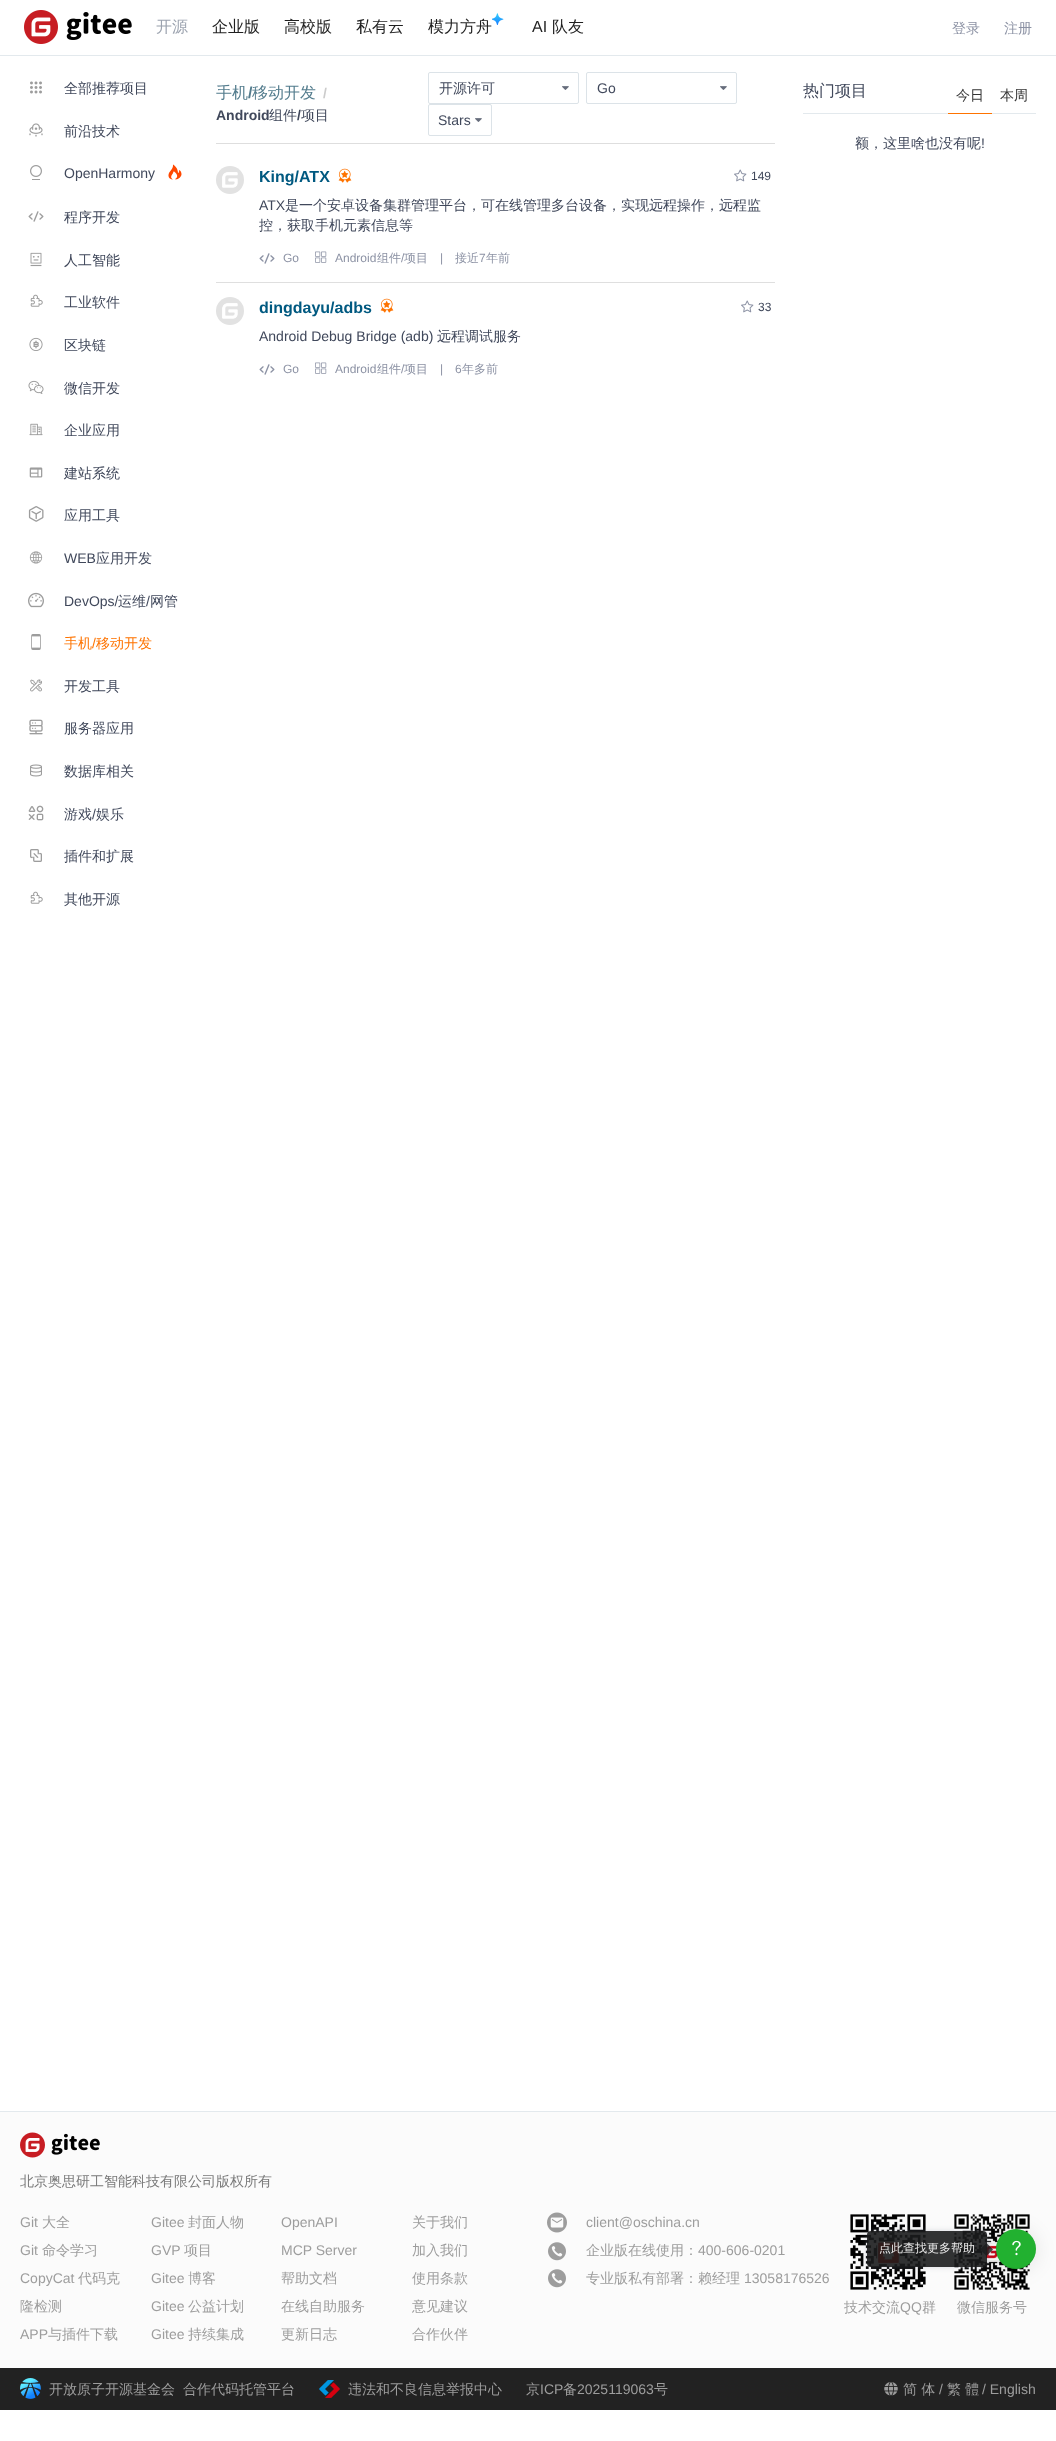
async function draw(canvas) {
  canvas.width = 1056;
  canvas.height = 2441;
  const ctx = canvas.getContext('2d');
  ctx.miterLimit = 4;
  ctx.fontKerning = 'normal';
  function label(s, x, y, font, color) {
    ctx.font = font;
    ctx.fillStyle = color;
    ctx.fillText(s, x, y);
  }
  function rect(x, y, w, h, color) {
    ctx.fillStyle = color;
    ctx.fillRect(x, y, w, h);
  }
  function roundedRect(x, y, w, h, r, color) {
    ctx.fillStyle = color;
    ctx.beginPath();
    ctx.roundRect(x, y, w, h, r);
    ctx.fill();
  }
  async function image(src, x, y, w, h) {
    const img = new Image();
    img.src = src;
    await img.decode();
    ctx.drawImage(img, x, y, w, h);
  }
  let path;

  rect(0, 0, 1056, 2441, '#fff');
  rect(0, 55, 1056, 1, '#e3e9ed');
  await image('assets/img1.png', 24, 10, 108, 34);
  label('开源', 156, 32, '500 16px WenQuanYi Zen Hei', '#9ca3af');
  label('企业版', 212, 32, '500 16px WenQuanYi Zen Hei', '#1f1f1f');
  label('高校版', 284, 32, '500 16px WenQuanYi Zen Hei', '#1f1f1f');
  label('私有云', 356, 32, '500 16px WenQuanYi Zen Hei', '#1f1f1f');
  label('模力方舟', 428, 32, '500 16px WenQuanYi Zen Hei', '#1f1f1f');
  await image('assets/img2.png', 492, 13, 12, 12);
  label('AI', 532, 32, '16px Liberation Sans', '#1f1f1f');
  label('队友', 552, 32, '500 16px WenQuanYi Zen Hei', '#1f1f1f');
  label('登录', 952, 33, '500 14px WenQuanYi Zen Hei', '#8c92a4');
  label('注册', 1004, 33, '500 14px WenQuanYi Zen Hei', '#8c92a4');
  await image('assets/img3.png', 30, 81, 12, 13);
  label('全部推荐项目', 64, 93, '500 14px WenQuanYi Zen Hei', '#40485b');
  await image('assets/img4.png', 29, 123, 14, 14);
  label('前沿技术', 64, 136, '500 14px WenQuanYi Zen Hei', '#40485b');
  await image('assets/img5.png', 30, 165, 12, 15);
  label('OpenHarmony', 64, 178, '14px Liberation Sans', '#40485b');
  await image('assets/img6.png', 168, 164, 14, 16);
  await image('assets/img7.png', 28, 211, 16, 11);
  label('程序开发', 64, 222, '500 14px WenQuanYi Zen Hei', '#40485b');
  await image('assets/img8.png', 30, 252, 12, 15);
  label('人工智能', 64, 265, '500 14px WenQuanYi Zen Hei', '#40485b');
  await image('assets/img9.png', 30, 294, 13, 13);
  label('工业软件', 64, 307, '500 14px WenQuanYi Zen Hei', '#40485b');
  await image('assets/img10.png', 29, 337, 14, 14);
  label('区块链', 64, 350, '500 14px WenQuanYi Zen Hei', '#40485b');
  await image('assets/img11.png', 28, 380, 16, 14);
  label('微信开发', 64, 393, '500 14px WenQuanYi Zen Hei', '#40485b');
  await image('assets/img12.png', 29, 423, 14, 13);
  label('企业应用', 64, 435, '500 14px WenQuanYi Zen Hei', '#40485b');
  await image('assets/img13.png', 29, 467, 14, 11);
  label('建站系统', 64, 478, '500 14px WenQuanYi Zen Hei', '#40485b');
  await image('assets/img14.png', 28, 506, 16, 16);
  label('应用工具', 64, 520, '500 14px WenQuanYi Zen Hei', '#40485b');
  await image('assets/img15.png', 29, 551, 14, 13);
  label('WEB', 64, 563, '14px Liberation Sans', '#40485b');
  label('应用开发', 96, 563, '500 14px WenQuanYi Zen Hei', '#40485b');
  await image('assets/img16.png', 28, 592, 16, 16);
  label('DevOps/', 64, 606, '14px Liberation Sans', '#40485b');
  label('运维', 118, 606, '500 14px WenQuanYi Zen Hei', '#40485b');
  label('/', 146, 606, '14px Liberation Sans', '#40485b');
  label('网管', 150, 606, '500 14px WenQuanYi Zen Hei', '#40485b');
  await image('assets/img17.png', 31, 634, 10, 16);
  label('手机', 64, 648, '500 14px WenQuanYi Zen Hei', '#fe7300');
  label('/', 92, 648, '14px Liberation Sans', '#fe7300');
  label('移动开发', 96, 648, '500 14px WenQuanYi Zen Hei', '#fe7300');
  await image('assets/img18.png', 30, 679, 12, 13);
  label('开发工具', 64, 691, '500 14px WenQuanYi Zen Hei', '#40485b');
  await image('assets/img19.png', 29, 719, 14, 16);
  label('服务器应用', 64, 733, '500 14px WenQuanYi Zen Hei', '#40485b');
  await image('assets/img20.png', 30, 764, 12, 13);
  label('数据库相关', 64, 776, '500 14px WenQuanYi Zen Hei', '#40485b');
  await image('assets/img21.png', 28, 805, 16, 16);
  label('游戏', 64, 819, '500 14px WenQuanYi Zen Hei', '#40485b');
  label('/', 92, 819, '14px Liberation Sans', '#40485b');
  label('娱乐', 96, 819, '500 14px WenQuanYi Zen Hei', '#40485b');
  await image('assets/img22.png', 30, 849, 12, 13);
  label('插件和扩展', 64, 861, '500 14px WenQuanYi Zen Hei', '#40485b');
  await image('assets/img9.png', 30, 891, 13, 13);
  label('其他开源', 64, 904, '500 14px WenQuanYi Zen Hei', '#40485b');
  label('手机', 216, 98, '500 16px WenQuanYi Zen Hei', '#537c8d');
  label('/', 248, 98, 'bold 16px Liberation Sans', '#537c8d');
  label('移动开发', 252, 98, '500 16px WenQuanYi Zen Hei', '#537c8d');
  label('/', 323, 98, 'bold 14px Liberation Sans', '#ccc');
  label('Android', 216, 120, 'bold 14px Liberation Sans', '#40485b');
  label('组件', 269, 120, '500 14px WenQuanYi Zen Hei', '#40485b');
  label('/', 297, 120, 'bold 14px Liberation Sans', '#40485b');
  label('项目', 301, 120, '500 14px WenQuanYi Zen Hei', '#40485b');
  ctx.beginPath();
  ctx.roundRect(428.5, 72.5, 150, 31, 1.5);
  ctx.strokeStyle = '#dce3e8';
  ctx.stroke();
  label('开源许可', 439, 93, '500 14px WenQuanYi Zen Hei', '#40485b');
  await image('assets/img23.png', 562, 86, 7, 4);
  ctx.beginPath();
  ctx.roundRect(586.5, 72.5, 150, 31, 1.5);
  ctx.stroke();
  label('Go', 597, 93, '14px Liberation Sans', '#40485b');
  await image('assets/img23.png', 720, 86, 7, 4);
  ctx.beginPath();
  ctx.roundRect(428.5, 104.5, 63, 31, 1.5);
  ctx.stroke();
  label('Stars', 438, 125, '14px Liberation Sans', '#40485b');
  await image('assets/img23.png', 475, 118, 7, 4);
  rect(216, 143, 559, 1, '#dedede');
  await image('assets/img24.png', 216, 166, 28, 28);
  label('King/ATX', 259, 182, 'bold 16px Liberation Sans', '#005980');
  await image('assets/img25.png', 338, 168, 14, 15);
  await image('assets/img26.png', 734, 169, 13, 13);
  label('149', 751, 180, '12px Liberation Sans', '#40485b');
  label('ATX', 259, 210, '14px Liberation Sans', '#40485b');
  label('是一个安卓设备集群管理平台，可在线管理多台设备，实现远程操作，远程监', 285, 210, '500 14px WenQuanYi Zen Hei', '#40485b');
  label('控，获取手机元素信息等', 259, 230, '500 14px WenQuanYi Zen Hei', '#40485b');
  await image('assets/img27.png', 259, 253, 16, 11);
  label('Go', 283, 262, '12px Liberation Sans', '#8c92a4');
  await image('assets/img28.png', 315, 251, 12, 12);
  label('Android', 335, 262, '12px Liberation Sans', '#8c92a4');
  label('组件', 377, 262, '500 12px WenQuanYi Zen Hei', '#8c92a4');
  label('/', 401, 262, '12px Liberation Sans', '#8c92a4');
  label('项目', 404, 262, '500 12px WenQuanYi Zen Hei', '#8c92a4');
  label('|', 440, 262, '12px Liberation Sans', '#8c92a4');
  label('接近', 455, 262, '500 12px WenQuanYi Zen Hei', '#8c92a4');
  label('7', 479, 262, '12px Liberation Sans', '#8c92a4');
  label('年前', 486, 262, '500 12px WenQuanYi Zen Hei', '#8c92a4');
  rect(216, 282, 559, 1, '#dfdfdf');
  await image('assets/img24.png', 216, 297, 28, 28);
  label('dingdayu/adbs', 259, 313, 'bold 16px Liberation Sans', '#005980');
  await image('assets/img25.png', 380, 298, 14, 15);
  await image('assets/img26.png', 741, 300, 13, 13);
  label('33', 758, 311, '12px Liberation Sans', '#40485b');
  label('Android Debug Bridge (adb)', 259, 341, '14px Liberation Sans', '#40485b');
  label('远程调试服务', 437, 341, '500 14px WenQuanYi Zen Hei', '#40485b');
  await image('assets/img27.png', 259, 364, 16, 11);
  label('Go', 283, 373, '12px Liberation Sans', '#8c92a4');
  await image('assets/img28.png', 315, 362, 12, 12);
  label('Android', 335, 373, '12px Liberation Sans', '#8c92a4');
  label('组件', 377, 373, '500 12px WenQuanYi Zen Hei', '#8c92a4');
  label('/', 401, 373, '12px Liberation Sans', '#8c92a4');
  label('项目', 404, 373, '500 12px WenQuanYi Zen Hei', '#8c92a4');
  label('|', 440, 373, '12px Liberation Sans', '#8c92a4');
  label('6', 455, 373, '12px Liberation Sans', '#8c92a4');
  label('年多前', 462, 373, '500 12px WenQuanYi Zen Hei', '#8c92a4');
  rect(803, 113, 145, 1, '#e3e9ed');
  label('热门项目', 803, 96, '500 16px WenQuanYi Zen Hei', '#40485b');
  rect(948, 113, 44, 1, '#fe7300');
  label('今日', 956, 100, '500 14px WenQuanYi Zen Hei', '#333');
  rect(992, 113, 44, 1, '#e3e9ed');
  label('本周', 1000, 100, '500 14px WenQuanYi Zen Hei', '#333');
  label('额，这里啥也没有呢', 855, 148, '500 14px WenQuanYi Zen Hei', '#40485b');
  label('!', 981, 148, '14px Liberation Sans', '#40485b');
  rect(0, 2112, 1056, 256, '#fbfbfb');
  rect(0, 2111, 1056, 1, '#e3e9ed');
  await image('assets/img29.png', 20, 2132, 80, 26);
  label('北京奥思研工智能科技有限公司版权所有', 20, 2186, '500 14px WenQuanYi Zen Hei', '#7a7a7a');
  label('Git', 20, 2227, '14px Liberation Sans', '#9d9d9d');
  label('大全', 42, 2227, '500 14px WenQuanYi Zen Hei', '#9d9d9d');
  label('Git', 20, 2255, '14px Liberation Sans', '#9d9d9d');
  label('命令学习', 42, 2255, '500 14px WenQuanYi Zen Hei', '#9d9d9d');
  label('CopyCat', 20, 2283, '14px Liberation Sans', '#9d9d9d');
  label('代码克', 78, 2283, '500 14px WenQuanYi Zen Hei', '#9d9d9d');
  label('隆检测', 20, 2311, '500 14px WenQuanYi Zen Hei', '#9d9d9d');
  label('APP', 20, 2339, '14px Liberation Sans', '#9d9d9d');
  label('与插件下载', 48, 2339, '500 14px WenQuanYi Zen Hei', '#9d9d9d');
  label('Gitee', 151, 2227, '14px Liberation Sans', '#9d9d9d');
  label('封面人物', 188, 2227, '500 14px WenQuanYi Zen Hei', '#9d9d9d');
  label('GVP', 151, 2255, '14px Liberation Sans', '#9d9d9d');
  label('项目', 184, 2255, '500 14px WenQuanYi Zen Hei', '#9d9d9d');
  label('Gitee', 151, 2283, '14px Liberation Sans', '#9d9d9d');
  label('博客', 188, 2283, '500 14px WenQuanYi Zen Hei', '#9d9d9d');
  label('Gitee', 151, 2311, '14px Liberation Sans', '#9d9d9d');
  label('公益计划', 188, 2311, '500 14px WenQuanYi Zen Hei', '#9d9d9d');
  label('Gitee', 151, 2339, '14px Liberation Sans', '#9d9d9d');
  label('持续集成', 188, 2339, '500 14px WenQuanYi Zen Hei', '#9d9d9d');
  label('OpenAPI', 281, 2227, '14px Liberation Sans', '#9d9d9d');
  label('MCP Server', 281, 2255, '14px Liberation Sans', '#9d9d9d');
  label('帮助文档', 281, 2283, '500 14px WenQuanYi Zen Hei', '#9d9d9d');
  label('在线自助服务', 281, 2311, '500 14px WenQuanYi Zen Hei', '#9d9d9d');
  label('更新日志', 281, 2339, '500 14px WenQuanYi Zen Hei', '#9d9d9d');
  label('关于我们', 412, 2227, '500 14px WenQuanYi Zen Hei', '#9d9d9d');
  label('加入我们', 412, 2255, '500 14px WenQuanYi Zen Hei', '#9d9d9d');
  label('使用条款', 412, 2283, '500 14px WenQuanYi Zen Hei', '#9d9d9d');
  label('意见建议', 412, 2311, '500 14px WenQuanYi Zen Hei', '#9d9d9d');
  label('合作伙伴', 412, 2339, '500 14px WenQuanYi Zen Hei', '#9d9d9d');
  await image('assets/img30.png', 547, 2212, 20, 21);
  label('client@oschina.cn', 586, 2227, '14px Liberation Sans', '#9d9d9d');
  await image('assets/img31.png', 548, 2242, 18, 19);
  label('企业版在线使用：', 586, 2255, '500 14px WenQuanYi Zen Hei', '#9d9d9d');
  label('400-606-0201', 698, 2255, '14px Liberation Sans', '#9d9d9d');
  await image('assets/img31.png', 548, 2269, 18, 19);
  label('专业版私有部署：赖经理', 586, 2283, '500 14px WenQuanYi Zen Hei', '#9d9d9d');
  label('13058176526', 744, 2283, '14px Liberation Sans', '#9d9d9d');
  await image('assets/img32.png', 850, 2214, 76, 76);
  label('技术交流', 844, 2312, '500 14px WenQuanYi Zen Hei', '#9d9d9d');
  label('QQ', 900, 2312, '14px Liberation Sans', '#9d9d9d');
  label('群', 922, 2312, '500 14px WenQuanYi Zen Hei', '#9d9d9d');
  await image('assets/img33.png', 954, 2214, 76, 76);
  label('微信服务号', 957, 2312, '500 14px WenQuanYi Zen Hei', '#9d9d9d');
  rect(0, 2368, 1056, 42, '#222');
  await image('assets/img34.png', 20, 2378, 21, 21);
  label('开放原子开源基金会', 49, 2394, '500 14px WenQuanYi Zen Hei', '#9d9d9d');
  label('合作代码托管平台', 183, 2394, '500 14px WenQuanYi Zen Hei', '#9d9d9d');
  await image('assets/img35.png', 319, 2380, 21, 18);
  label('违法和不良信息举报中心', 348, 2394, '500 14px WenQuanYi Zen Hei', '#9d9d9d');
  label('京', 526, 2394, '500 14px WenQuanYi Zen Hei', '#9d9d9d');
  label('ICP', 540, 2394, '14px Liberation Sans', '#9d9d9d');
  label('备', 563, 2394, '500 14px WenQuanYi Zen Hei', '#9d9d9d');
  label('2025119063', 577, 2394, '14px Liberation Sans', '#9d9d9d');
  label('号', 654, 2394, '500 14px WenQuanYi Zen Hei', '#9d9d9d');
  await image('assets/img36.png', 884, 2382, 14, 14);
  label('简 体', 903, 2394, '500 14px WenQuanYi Zen Hei', '#9d9d9d');
  label('/', 939, 2394, '14px Liberation Sans', '#9d9d9d');
  label('繁 體', 947, 2394, '500 14px WenQuanYi Zen Hei', '#9d9d9d');
  label('/ English', 982, 2394, '14px Liberation Sans', '#9d9d9d');
  ctx.fillStyle = '#0000001a';
  ctx.filter = 'blur(10px)';
  ctx.beginPath();
  ctx.roundRect(996, 2230, 40, 40, 20);
  ctx.fill();
  ctx.filter = 'none';
  ctx.fillStyle = '#22b130';
  ctx.beginPath();
  ctx.arc(1016, 2249, 20, 0, 2 * Math.PI);
  ctx.fill();
  ctx.fillStyle = '#0000001a';
  path = new Path2D('M997 2242C988 2265 1024 2281 1034 2257C1036 2252 1037 2246 1035 2242C1038 2253 1032 2268 1016 2268C1000 2268 994 2253 997 2242Z');
  ctx.fill(path);
  ctx.save();
  path = new Path2D('M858 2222H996V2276H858ZM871 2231H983C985 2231 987 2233 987 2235V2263C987 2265 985 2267 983 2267H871C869 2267 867 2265 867 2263V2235C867 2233 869 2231 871 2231Z');
  ctx.clip(path, 'evenodd');
  ctx.fillStyle = '#8c92a373';
  ctx.filter = 'blur(3px)';
  ctx.beginPath();
  ctx.roundRect(868, 2232, 118, 34, 3);
  ctx.fill();
  ctx.filter = 'none';
  ctx.restore();
  roundedRect(867, 2231, 120, 36, 4, '#1b1c1de6');
  label('点此查找更多帮助', 879, 2252, '500 12px WenQuanYi Zen Hei', '#eaeaea');
  ctx.fillStyle = '#b3b3b329';
  path = new Path2D('M988 2243L987 2244L993 2249.5L987 2255L988 2256L994 2249.5Z');
  ctx.fill(path);
  ctx.fillStyle = '#1b1c1dcf';
  path = new Path2D('M986.5 2243L993 2249.5L986.5 2256L980 2249.5Z');
  ctx.fill(path);
  await image('assets/img37.png', 1012, 2240, 9, 16);
}

draw(document.querySelector('canvas'));
